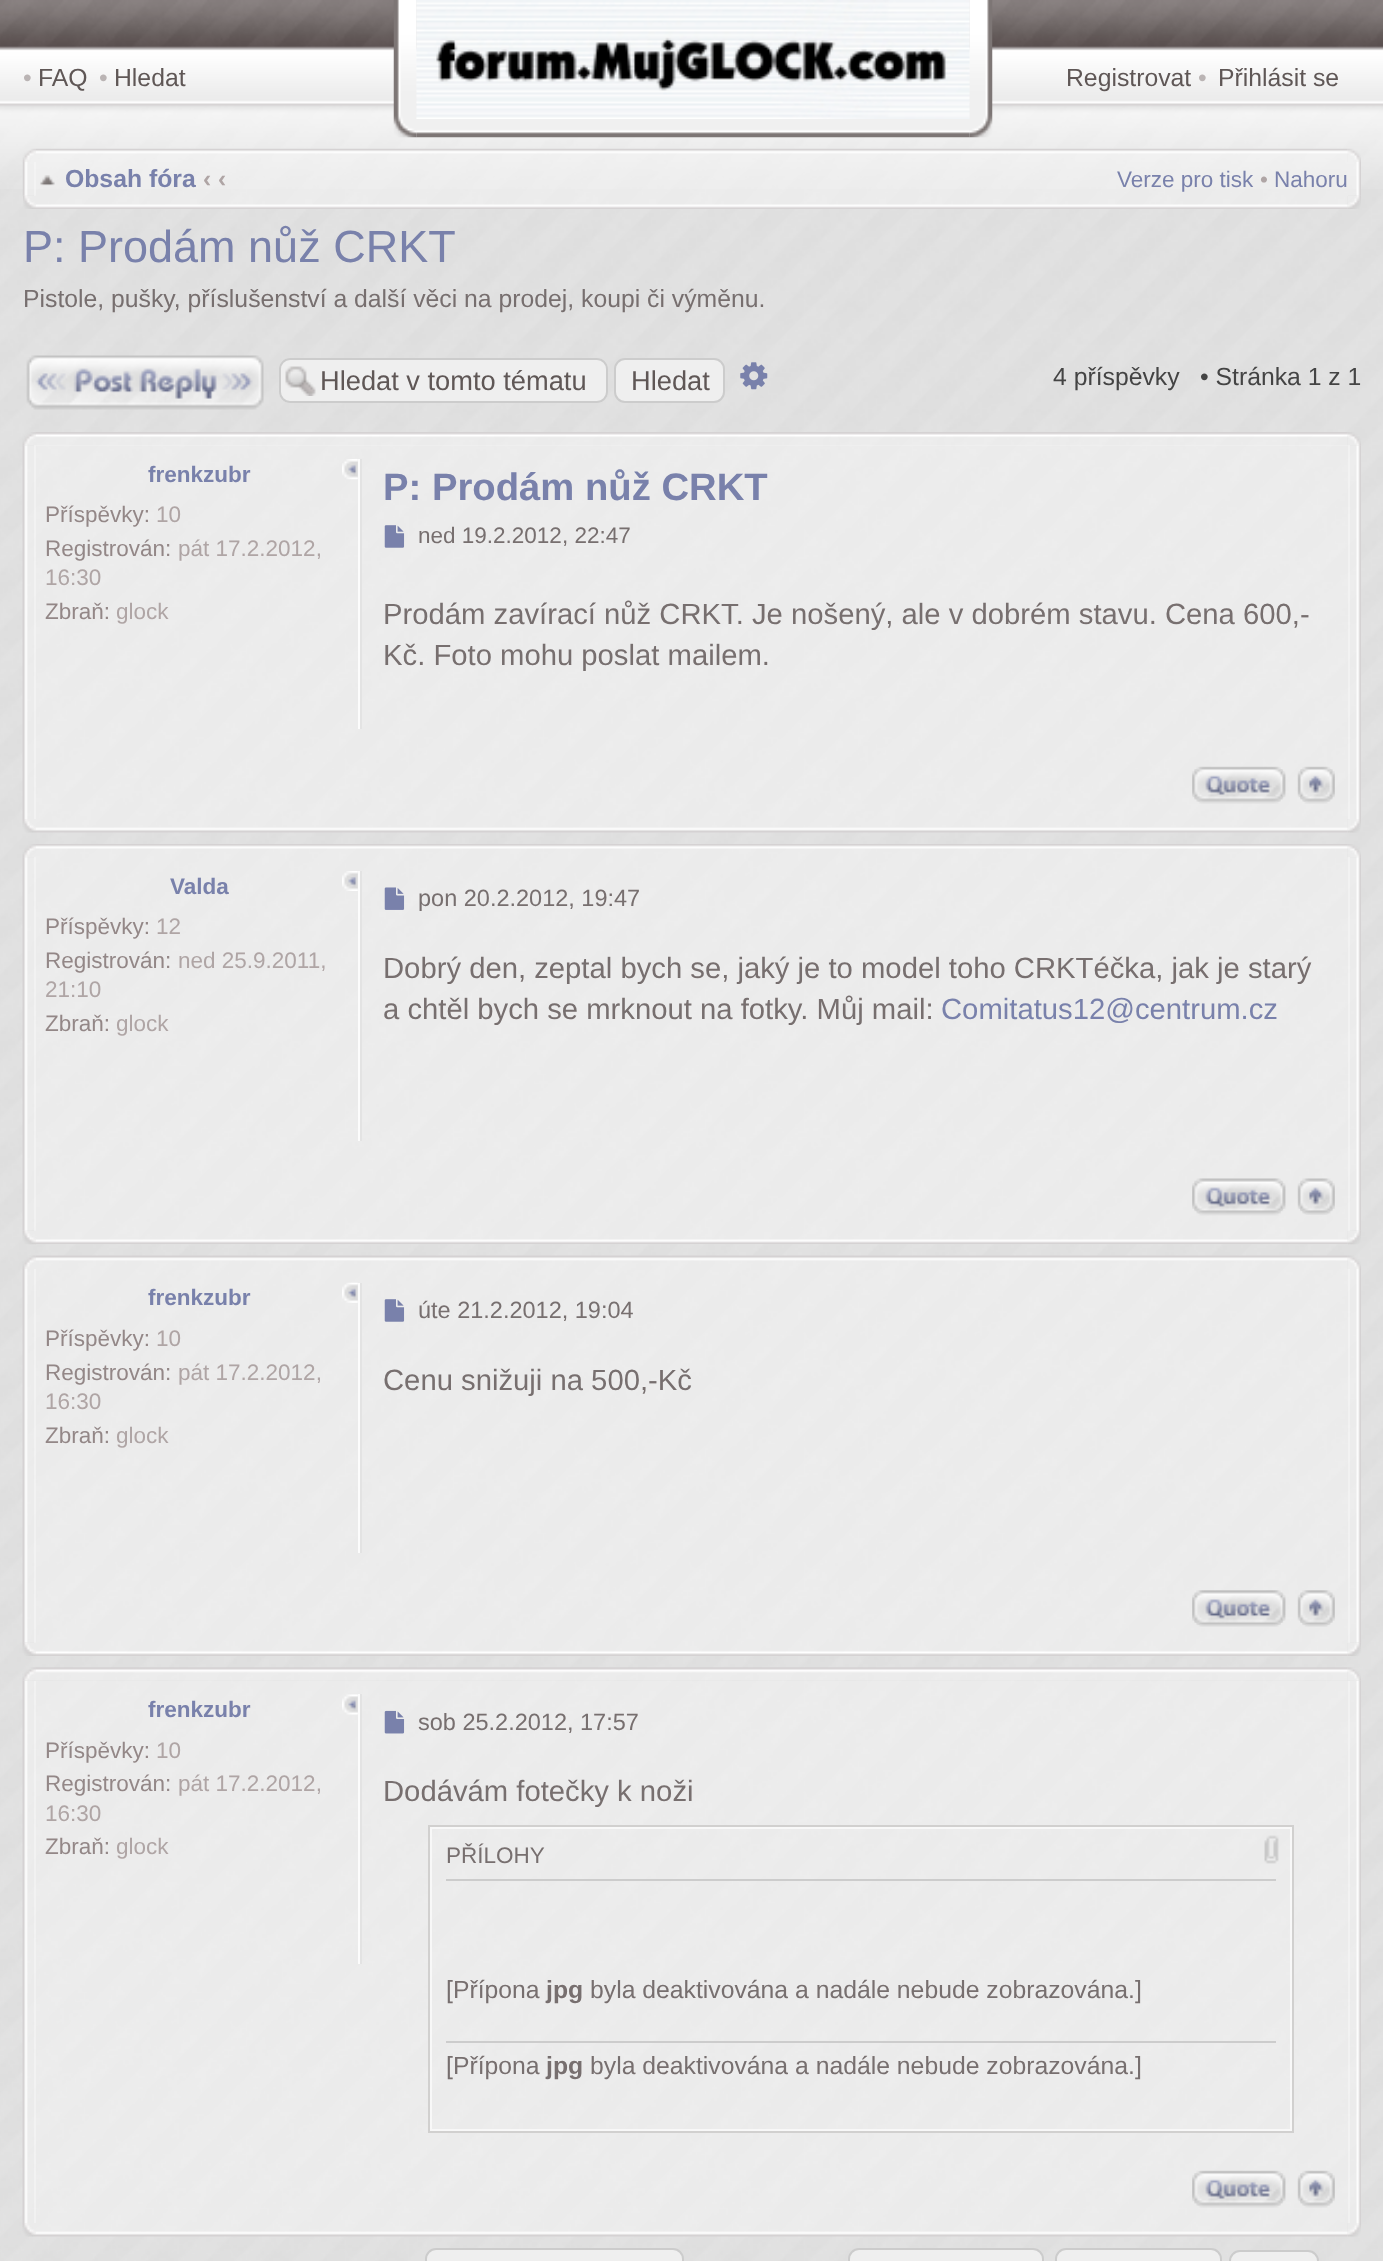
async function draw(canvas) {
  canvas.width = 1383;
  canvas.height = 2261;
  const ctx = canvas.getContext('2d');
  ctx.miterLimit = 4;
  ctx.fontKerning = 'normal';
  function label(s, x, y, font, color) {
    ctx.font = font;
    ctx.fillStyle = color;
    ctx.fillText(s, x, y);
  }
  function rect(x, y, w, h, color) {
    ctx.fillStyle = color;
    ctx.fillRect(x, y, w, h);
  }
  function roundedRect(x, y, w, h, r, color) {
    ctx.fillStyle = color;
    ctx.beginPath();
    ctx.roundRect(x, y, w, h, r);
    ctx.fill();
  }
  async function image(src, x, y, w, h) {
    const img = new Image();
    img.src = src;
    await img.decode();
    ctx.drawImage(img, x, y, w, h);
  }

  rect(0, 0, 1383, 2261, '#fff');
  await image('assets/img1.png', 0, 189, 1383, 2072);
  await image('assets/img2.png', 0, 0, 1383, 189);
  label('•', 23, 86, '24.75px Liberation Sans', '#bab4b4');
  label('FAQ', 38, 86, '24.75px Liberation Sans', '#5f5756');
  label('•', 99, 86, '24.75px Liberation Sans', '#bab4b4');
  label('Hledat', 114, 86, '24.75px Liberation Sans', '#5f5756');
  await image('assets/img3.png', 416, 0, 554, 138);
  await image('assets/img5.png', 416, 0, 554, 119);
  await image('assets/img4.png', 393, 0, 24, 138);
  await image('assets/img6.png', 969, 0, 24, 138);
  label('Registrovat', 1066, 86, '24.75px Liberation Sans', '#5f5756');
  label('•', 1198, 86, '24.75px Liberation Sans', '#bab4b4');
  label('Přihlásit se', 1218, 86, '24.75px Liberation Sans', '#5f5756');
  await image('assets/img7.png', 36, 148, 1312, 14);
  await image('assets/img8.png', 22, 148, 14, 14);
  await image('assets/img9.png', 1348, 148, 13, 14);
  await image('assets/img10.png', 22, 162, 14, 34);
  await image('assets/img11.png', 1348, 162, 13, 34);
  rect(34, 162, 1314, 34, '#f7f7f780');
  await image('assets/img12.png', 40, 175, 15, 11);
  label('Obsah fóra', 65, 187, 'bold 24.75px Liberation Sans', '#7981ab');
  label('‹ ‹', 203, 187, 'bold 24.75px Liberation Sans', '#afa5a5');
  label('Verze pro tisk', 1117, 187, '22.5px Liberation Sans', '#7981ab');
  label('•', 1260, 187, '22.5px Liberation Sans', '#afa5a5');
  label('Nahoru', 1274, 187, '22.5px Liberation Sans', '#7981ab');
  await image('assets/img13.png', 36, 196, 1312, 13);
  await image('assets/img14.png', 23, 196, 13, 13);
  await image('assets/img15.png', 1348, 196, 13, 13);
  label('P: Prodám nůž CRKT', 23, 262, '45px Liberation Sans', '#7981ab');
  label('Pistole, pušky, příslušenství a další věci na prodej, koupi či výměnu.', 23, 307, '24.75px Liberation Sans', '#776f6f');
  await image('assets/img16.png', 26, 355, 238, 55);
  roundedRect(279, 358, 329, 45, 11, '#efefef');
  await image('assets/img17.png', 285, 366, 31, 30);
  ctx.beginPath();
  ctx.roundRect(280, 359, 327, 43, 10);
  ctx.strokeStyle = '#ccc';
  ctx.lineWidth = 2;
  ctx.stroke();
  label('Hledat v tomto tématu', 320, 390, '27.25px Liberation Sans', '#5f5756');
  ctx.fillStyle = '#efefef';
  ctx.beginPath();
  ctx.roundRect(615, 359, 109, 43, 10);
  ctx.fill();
  ctx.stroke();
  label('Hledat', 631, 390, '27.25px Liberation Sans', '#5f5756');
  await image('assets/img18.png', 740, 362, 28, 28);
  label('4 příspěvky', 1053, 385, '24.75px Liberation Sans', '#444');
  label('• Stránka 1 z 1', 1200, 385, '24.75px Liberation Sans', '#444');
  await image('assets/img19.png', 36, 432, 1312, 14);
  await image('assets/img20.png', 22, 432, 14, 14);
  await image('assets/img21.png', 1348, 432, 13, 14);
  await image('assets/img22.png', 22, 445, 14, 374);
  await image('assets/img23.png', 1348, 445, 13, 374);
  rect(34, 445, 1316, 374, '#f7f7f780');
  rect(360, 459, 2, 270, '#e3e3e3');
  rect(358, 459, 2, 270, '#fcfcfc');
  label('frenkzubr', 148, 482, 'bold 22.5px Liberation Sans', '#7981ab');
  await image('assets/img24.png', 342, 459, 16, 21);
  label('Příspěvky:', 45, 522, '22.5px Liberation Sans', '#938787');
  label('10', 156, 522, '22.5px Liberation Sans', '#afa5a5');
  label('Registrován:', 45, 556, '22.5px Liberation Sans', '#938787');
  label('pát 17.2.2012,', 178, 556, '22.5px Liberation Sans', '#afa5a5');
  label('16:30', 45, 585, '22.5px Liberation Sans', '#afa5a5');
  label('Zbraň:', 45, 619, '22.5px Liberation Sans', '#938787');
  label('glock', 116, 619, '22.5px Liberation Sans', '#afa5a5');
  label('P: Prodám nůž CRKT', 383, 500, 'bold 38.25px Liberation Sans', '#7981ab');
  await image('assets/img25.png', 384, 525, 21, 23);
  label('ned 19.2.2012, 22:47', 418, 543, '22.5px Liberation Sans', '#776f6f');
  label('Prodám zavírací nůž CRKT. Je nošený, ale v dobrém stavu. Cena 600,-', 383, 624, '29.25px Liberation Sans', '#776f6f');
  label('Kč. Foto mohu poslat mailem.', 383, 665, '29.25px Liberation Sans', '#776f6f');
  await image('assets/img26.png', 1192, 766, 94, 38);
  await image('assets/img27.png', 1192, 768, 94, 34);
  await image('assets/img28.png', 1297, 766, 38, 38);
  await image('assets/img29.png', 1299, 768, 36, 34);
  await image('assets/img30.png', 36, 819, 1312, 14);
  await image('assets/img31.png', 22, 819, 14, 14);
  await image('assets/img32.png', 1348, 819, 13, 14);
  await image('assets/img33.png', 36, 844, 1312, 13);
  await image('assets/img34.png', 22, 844, 14, 14);
  await image('assets/img35.png', 1348, 844, 13, 14);
  await image('assets/img36.png', 22, 857, 14, 374);
  await image('assets/img37.png', 1348, 857, 13, 374);
  rect(34, 857, 1316, 374, '#f7f7f780');
  rect(360, 871, 2, 270, '#e3e3e3');
  rect(358, 871, 2, 270, '#fcfcfc');
  label('Valda', 170, 894, 'bold 22.5px Liberation Sans', '#7981ab');
  await image('assets/img38.png', 342, 871, 16, 20);
  label('Příspěvky:', 45, 934, '22.5px Liberation Sans', '#938787');
  label('12', 156, 934, '22.5px Liberation Sans', '#afa5a5');
  label('Registrován:', 45, 968, '22.5px Liberation Sans', '#938787');
  label('ned 25.9.2011,', 178, 968, '22.5px Liberation Sans', '#afa5a5');
  label('21:10', 45, 997, '22.5px Liberation Sans', '#afa5a5');
  label('Zbraň:', 45, 1031, '22.5px Liberation Sans', '#938787');
  label('glock', 116, 1031, '22.5px Liberation Sans', '#afa5a5');
  await image('assets/img39.png', 384, 887, 21, 23);
  label('pon 20.2.2012, 19:47', 418, 906, '23.5px Liberation Sans', '#776f6f');
  label('Dobrý den, zeptal bych se, jaký je to model toho CRKTéčka, jak je starý', 383, 978, '29.25px Liberation Sans', '#776f6f');
  label('a chtěl bych se mrknout na fotky. Můj mail:', 383, 1019, '29.25px Liberation Sans', '#776f6f');
  label('Comitatus12@centrum.cz', 941, 1019, '29.25px Liberation Sans', '#7981ab');
  await image('assets/img40.png', 1192, 1178, 94, 38);
  await image('assets/img41.png', 1192, 1178, 94, 36);
  await image('assets/img42.png', 1297, 1178, 38, 37);
  await image('assets/img43.png', 1299, 1178, 36, 36);
  await image('assets/img44.png', 36, 1231, 1312, 13);
  await image('assets/img45.png', 22, 1231, 14, 14);
  await image('assets/img46.png', 1348, 1231, 13, 14);
  await image('assets/img47.png', 36, 1255, 1312, 14);
  await image('assets/img48.png', 22, 1255, 14, 14);
  await image('assets/img49.png', 1348, 1255, 13, 14);
  await image('assets/img50.png', 22, 1269, 14, 374);
  await image('assets/img51.png', 1348, 1269, 13, 374);
  rect(34, 1269, 1316, 374, '#f7f7f780');
  rect(360, 1283, 2, 270, '#e3e3e3');
  rect(358, 1283, 2, 270, '#fcfcfc');
  label('frenkzubr', 148, 1305, 'bold 22.5px Liberation Sans', '#7981ab');
  await image('assets/img52.png', 342, 1282, 16, 21);
  label('Příspěvky:', 45, 1346, '22.5px Liberation Sans', '#938787');
  label('10', 156, 1346, '22.5px Liberation Sans', '#afa5a5');
  label('Registrován:', 45, 1380, '22.5px Liberation Sans', '#938787');
  label('pát 17.2.2012,', 178, 1380, '22.5px Liberation Sans', '#afa5a5');
  label('16:30', 45, 1409, '22.5px Liberation Sans', '#afa5a5');
  label('Zbraň:', 45, 1443, '22.5px Liberation Sans', '#938787');
  label('glock', 116, 1443, '22.5px Liberation Sans', '#afa5a5');
  await image('assets/img53.png', 384, 1299, 21, 23);
  label('úte 21.2.2012, 19:04', 418, 1318, '23.5px Liberation Sans', '#776f6f');
  label('Cenu snižuji na 500,-Kč', 383, 1390, '29.25px Liberation Sans', '#776f6f');
  await image('assets/img54.png', 1192, 1590, 94, 37);
  await image('assets/img55.png', 1192, 1590, 94, 35);
  await image('assets/img56.png', 1297, 1590, 38, 37);
  await image('assets/img57.png', 1299, 1590, 36, 35);
  await image('assets/img58.png', 36, 1643, 1312, 13);
  await image('assets/img59.png', 22, 1642, 14, 14);
  await image('assets/img60.png', 1348, 1642, 13, 14);
  await image('assets/img61.png', 36, 1667, 1312, 14);
  await image('assets/img62.png', 22, 1667, 14, 14);
  await image('assets/img63.png', 1348, 1667, 13, 14);
  await image('assets/img64.png', 22, 1681, 14, 542);
  await image('assets/img65.png', 1348, 1681, 13, 542);
  rect(34, 1681, 1316, 542, '#f7f7f780');
  rect(360, 1694, 2, 270, '#e3e3e3');
  rect(358, 1694, 2, 270, '#fcfcfc');
  label('frenkzubr', 148, 1717, 'bold 22.5px Liberation Sans', '#7981ab');
  await image('assets/img66.png', 342, 1694, 16, 21);
  label('Příspěvky:', 45, 1758, '22.5px Liberation Sans', '#938787');
  label('10', 156, 1758, '22.5px Liberation Sans', '#afa5a5');
  label('Registrován:', 45, 1791, '22.5px Liberation Sans', '#938787');
  label('pát 17.2.2012,', 178, 1791, '22.5px Liberation Sans', '#afa5a5');
  label('16:30', 45, 1821, '22.5px Liberation Sans', '#afa5a5');
  label('Zbraň:', 45, 1854, '22.5px Liberation Sans', '#938787');
  label('glock', 116, 1854, '22.5px Liberation Sans', '#afa5a5');
  await image('assets/img67.png', 384, 1710, 21, 24);
  label('sob 25.2.2012, 17:57', 418, 1730, '23.5px Liberation Sans', '#776f6f');
  label('Dodávám fotečky k noži', 383, 1801, '29.25px Liberation Sans', '#776f6f');
  ctx.strokeStyle = '#d1d0cf';
  ctx.strokeRect(429, 1826, 864, 306);
  await image('assets/img68.png', 1264, 1835, 15, 29);
  ctx.strokeStyle = '#f8f8f8';
  ctx.strokeRect(431, 1828, 860, 302);
  label('PŘÍLOHY', 446, 1863, '22.5px Liberation Sans', '#776f6f');
  rect(446, 1879, 830, 2, '#ccc');
  label('[Přípona', 446, 1998, '24.75px Liberation Sans', '#776f6f');
  label('jpg', 546, 1998, 'bold 24.75px Liberation Sans', '#776f6f');
  label('byla deaktivována a nadále nebude zobrazována.]', 590, 1998, '24.75px Liberation Sans', '#776f6f');
  rect(446, 2041, 830, 2, '#ccc');
  label('[Přípona', 446, 2074, '24.75px Liberation Sans', '#776f6f');
  label('jpg', 546, 2074, 'bold 24.75px Liberation Sans', '#776f6f');
  label('byla deaktivována a nadále nebude zobrazována.]', 590, 2074, '24.75px Liberation Sans', '#776f6f');
  await image('assets/img69.png', 1192, 2170, 94, 38);
  await image('assets/img70.png', 1192, 2172, 94, 34);
  await image('assets/img71.png', 1297, 2170, 38, 38);
  await image('assets/img72.png', 1299, 2172, 36, 34);
  await image('assets/img73.png', 36, 2223, 1312, 14);
  await image('assets/img74.png', 22, 2223, 14, 14);
  await image('assets/img75.png', 1348, 2223, 13, 14);
  ctx.fillStyle = '#efefef';
  ctx.beginPath();
  ctx.roundRect(426, 2249, 257, 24, 10);
  ctx.fill();
  ctx.strokeStyle = '#ccc';
  ctx.stroke();
  ctx.beginPath();
  ctx.roundRect(849, 2249, 194, 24, 10);
  ctx.fill();
  ctx.stroke();
  ctx.beginPath();
  ctx.roundRect(1056, 2249, 165, 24, 10);
  ctx.fill();
  ctx.stroke();
  ctx.beginPath();
  ctx.roundRect(1230, 2251, 88, 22, 10);
  ctx.fill();
  ctx.stroke();
}

draw(document.querySelector('canvas'));
